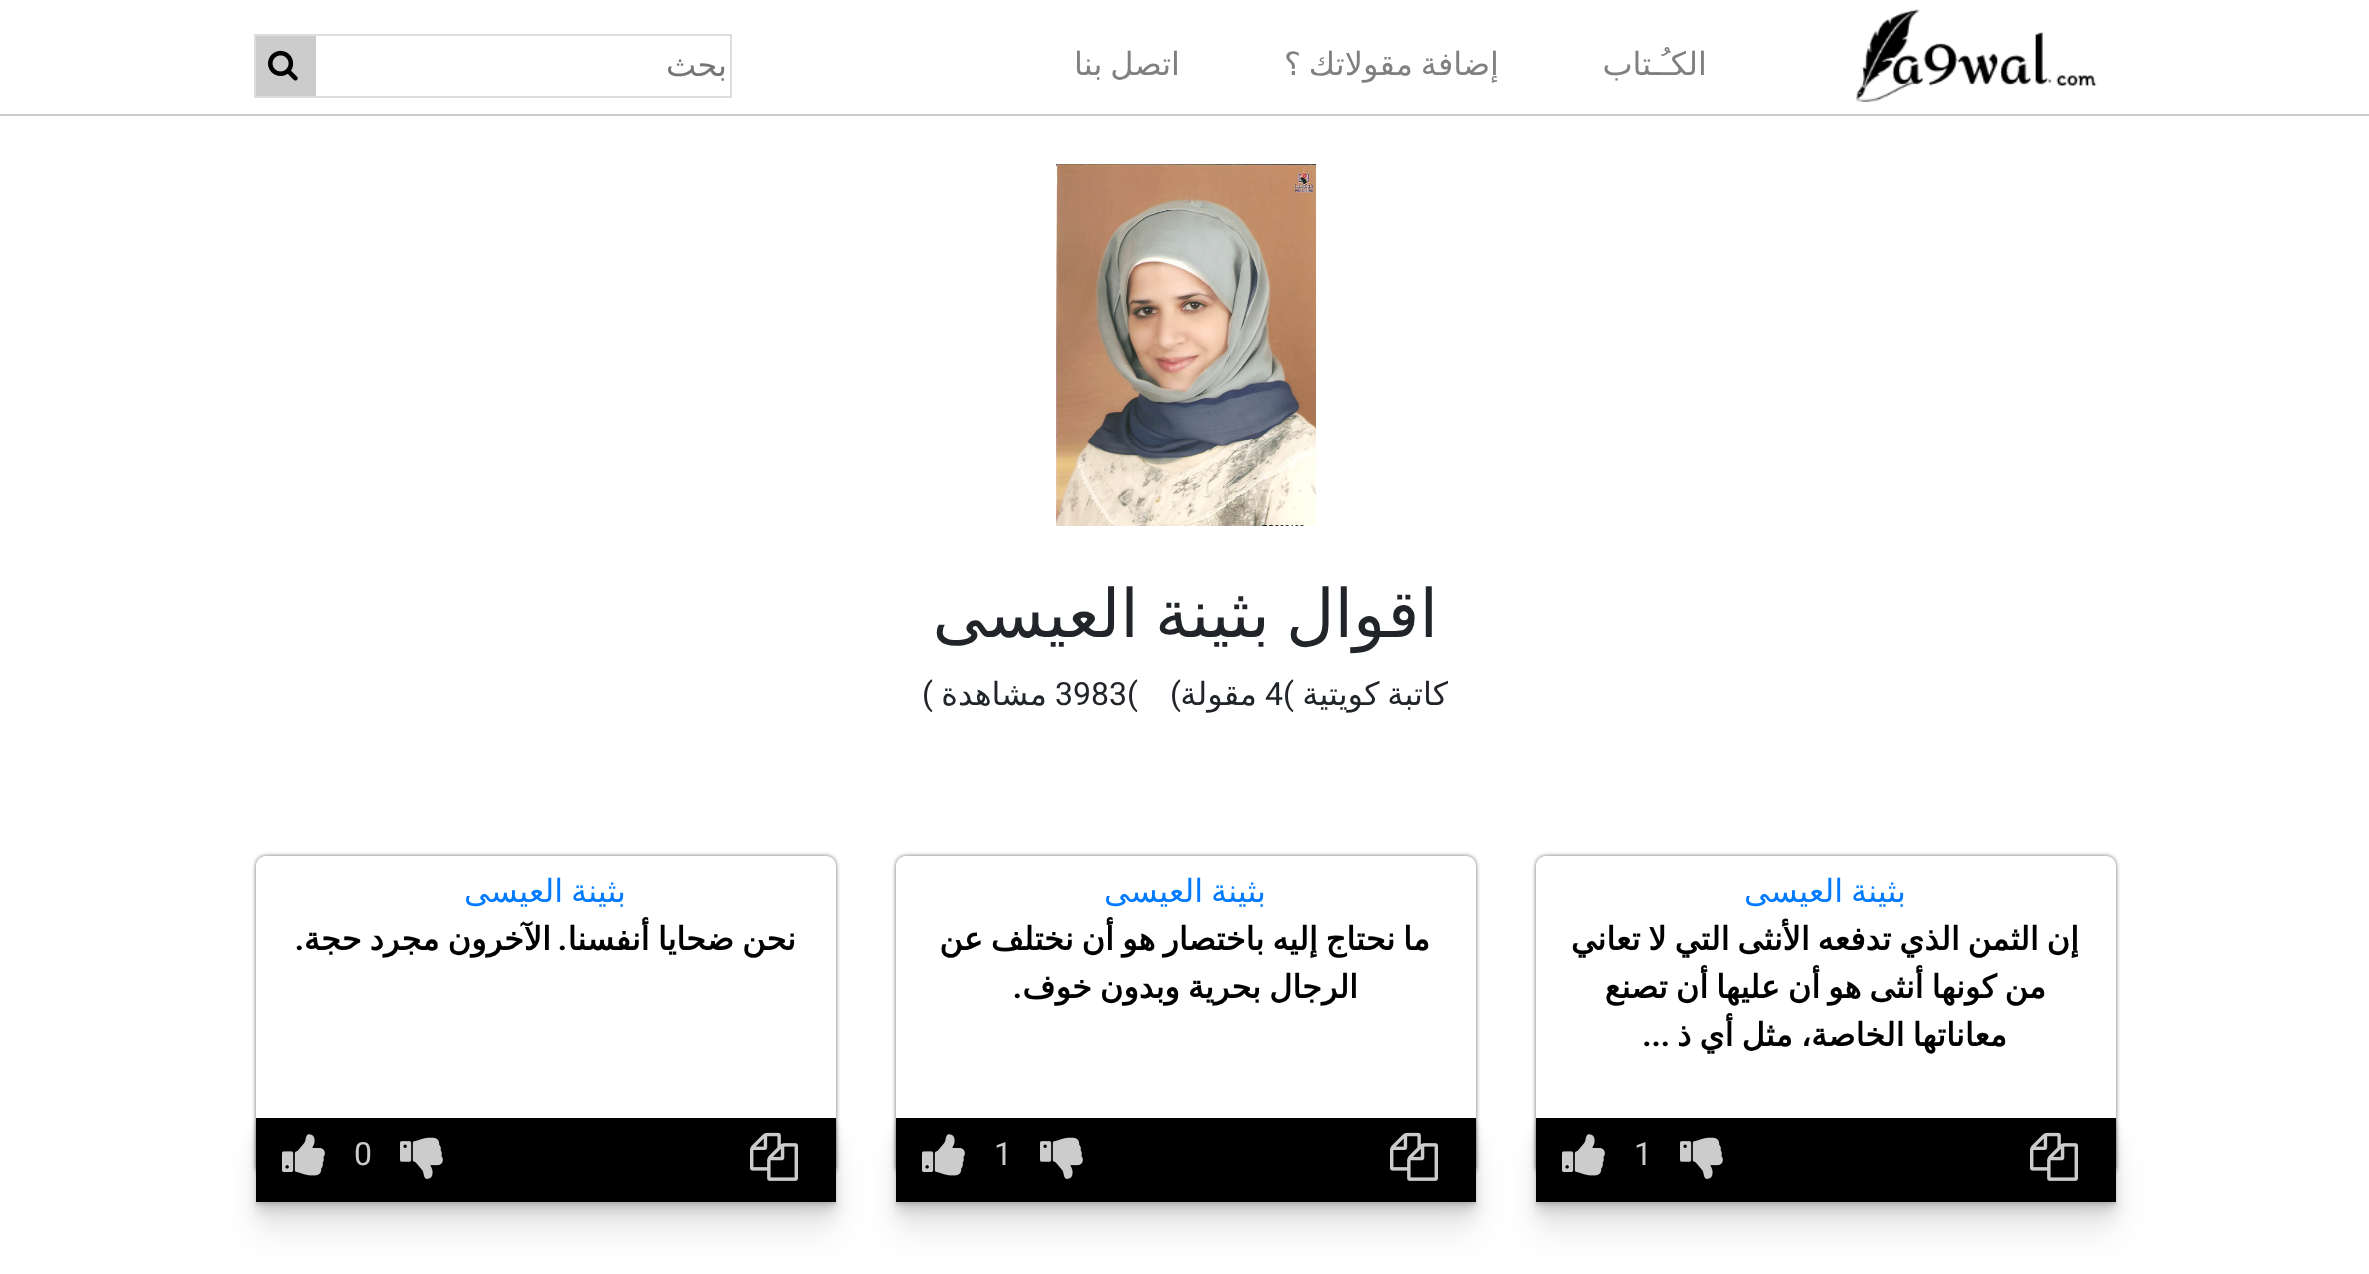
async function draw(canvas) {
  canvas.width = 2369;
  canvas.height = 1274;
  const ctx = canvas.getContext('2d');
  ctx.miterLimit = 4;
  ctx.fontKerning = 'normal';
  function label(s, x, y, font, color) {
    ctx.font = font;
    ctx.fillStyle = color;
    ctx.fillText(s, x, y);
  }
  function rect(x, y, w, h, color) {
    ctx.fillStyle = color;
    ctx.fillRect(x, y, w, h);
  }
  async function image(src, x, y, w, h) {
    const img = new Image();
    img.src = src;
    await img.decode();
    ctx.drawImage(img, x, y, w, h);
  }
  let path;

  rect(0, 0, 2369, 1274, '#fff');
  rect(0, 114, 2369, 2, '#ccc');
  await image('assets/img1.png', 1856, 9, 241, 93);
  ctx.direction = 'rtl';
  label('الكـُـتاب', 1707, 75, '32px DejaVu Sans', '#808080');
  ctx.wordSpacing = '-2.25px';
  label('إضافة مقولاتك ؟', 1499, 75, '32px DejaVu Sans', '#808080');
  label('اتصل بنا', 1180, 75, '32px DejaVu Sans', '#808080');
  ctx.strokeStyle = '#ddddde';
  ctx.lineWidth = 2;
  ctx.strokeRect(255, 35, 476, 62);
  rect(256, 36, 60, 60, '#ccc');
  ctx.wordSpacing = '0px';
  label('بحث', 727, 76, '32px DejaVu Sans', '#757575');
  await image('assets/img2.png', 268, 50, 30, 31);
  await image('assets/img3.png', 1056, 164, 260, 362);
  ctx.wordSpacing = '-5px';
  label('اقوال بثينة العيسى', 1438, 637, '66.75px DejaVu Sans', '#212529');
  ctx.wordSpacing = '-2.25px';
  label('كاتبة كويتية', 1448, 705, '32px DejaVu Sans', '#212529');
  ctx.wordSpacing = '0px';
  ctx.direction = 'ltr';
  label('4(', 1265, 705, '32px Roboto', '#212529');
  ctx.direction = 'rtl';
  label('مقولة', 1257, 705, '32px DejaVu Sans', '#212529');
  label(')', 1181, 705, '32px Roboto', '#212529');
  ctx.direction = 'ltr';
  label('3983(', 1055, 705, '32px Roboto', '#212529');
  ctx.direction = 'rtl';
  label('مشاهدة', 1047, 705, '32px DejaVu Sans', '#212529');
  label(')', 933, 705, '32px Roboto', '#212529');
  ctx.save();
  path = new Path2D('M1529 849H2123V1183H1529ZM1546 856H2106C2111.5 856 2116 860.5 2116 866V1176H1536V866C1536 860.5 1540.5 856 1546 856Z');
  ctx.clip(path, 'evenodd');
  ctx.fillStyle = '#666';
  ctx.filter = 'blur(2px)';
  ctx.beginPath();
  ctx.roundRect(1536, 856, 580, 320, 10);
  ctx.fill();
  ctx.filter = 'none';
  ctx.restore();
  ctx.wordSpacing = '-2.25px';
  label('بثينة العيسى', 1906, 902, '32px DejaVu Sans', '#007bff');
  label('إن الثمن الذي تدفعه الأنثى التي لا تعاني', 2079, 950, 'bold 32px DejaVu Sans', '#000');
  label('من كونها أنثى هو أن عليها أن تصنع', 2046, 998, 'bold 32px DejaVu Sans', '#000');
  ctx.wordSpacing = '-2px';
  label('معاناتها الخاصة، مثل أي ذ', 2007, 1046, 'bold 32px DejaVu Sans', '#000');
  ctx.wordSpacing = '0px';
  label('...', 1670, 1046, 'bold 32px Roboto', '#000');
  ctx.fillStyle = '#00000012';
  ctx.filter = 'blur(16px)';
  ctx.beginPath();
  ctx.rect(1536, 1150, 580, 84);
  ctx.fill();
  ctx.filter = 'none';
  ctx.filter = 'blur(8px)';
  ctx.beginPath();
  ctx.rect(1536, 1134, 580, 84);
  ctx.fill();
  ctx.filter = 'none';
  ctx.filter = 'blur(4px)';
  ctx.beginPath();
  ctx.rect(1536, 1126, 580, 84);
  ctx.fill();
  ctx.filter = 'none';
  ctx.filter = 'blur(2px)';
  ctx.beginPath();
  ctx.rect(1536, 1122, 580, 84);
  ctx.fill();
  ctx.filter = 'none';
  ctx.filter = 'blur(1px)';
  ctx.beginPath();
  ctx.rect(1536, 1120, 580, 84);
  ctx.fill();
  ctx.filter = 'none';
  rect(1536, 1118, 580, 84, '#000');
  await image('assets/img4.png', 2030, 1132, 48, 49);
  await image('assets/img5.png', 1680, 1137, 43, 42);
  ctx.direction = 'ltr';
  label('1', 1634, 1165, '32px Roboto', '#ccc');
  await image('assets/img6.png', 1562, 1134, 43, 42);
  ctx.save();
  path = new Path2D('M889 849H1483V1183H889ZM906 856H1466C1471.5 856 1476 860.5 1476 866V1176H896V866C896 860.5 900.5 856 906 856Z');
  ctx.clip(path, 'evenodd');
  ctx.fillStyle = '#666';
  ctx.filter = 'blur(2px)';
  ctx.beginPath();
  ctx.roundRect(896, 856, 580, 320, 10);
  ctx.fill();
  ctx.filter = 'none';
  ctx.restore();
  ctx.wordSpacing = '-2.25px';
  ctx.direction = 'rtl';
  label('بثينة العيسى', 1266, 902, '32px DejaVu Sans', '#007bff');
  label('ما نحتاج إليه باختصار هو أن نختلف عن', 1430, 950, 'bold 32px DejaVu Sans', '#000');
  label('الرجال بحرية وبدون خوف', 1358, 998, 'bold 32px DejaVu Sans', '#000');
  ctx.wordSpacing = '0px';
  label('.', 1022, 998, 'bold 32px Roboto', '#000');
  ctx.fillStyle = '#00000012';
  ctx.filter = 'blur(16px)';
  ctx.beginPath();
  ctx.rect(896, 1150, 580, 84);
  ctx.fill();
  ctx.filter = 'none';
  ctx.filter = 'blur(8px)';
  ctx.beginPath();
  ctx.rect(896, 1134, 580, 84);
  ctx.fill();
  ctx.filter = 'none';
  ctx.filter = 'blur(4px)';
  ctx.beginPath();
  ctx.rect(896, 1126, 580, 84);
  ctx.fill();
  ctx.filter = 'none';
  ctx.filter = 'blur(2px)';
  ctx.beginPath();
  ctx.rect(896, 1122, 580, 84);
  ctx.fill();
  ctx.filter = 'none';
  ctx.filter = 'blur(1px)';
  ctx.beginPath();
  ctx.rect(896, 1120, 580, 84);
  ctx.fill();
  ctx.filter = 'none';
  rect(896, 1118, 580, 84, '#000');
  await image('assets/img4.png', 1390, 1132, 48, 49);
  await image('assets/img5.png', 1040, 1137, 43, 42);
  ctx.direction = 'ltr';
  label('1', 994, 1165, '32px Roboto', '#ccc');
  await image('assets/img6.png', 922, 1134, 43, 42);
  ctx.save();
  path = new Path2D('M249 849H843V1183H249ZM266 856H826C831.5 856 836 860.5 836 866V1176H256V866C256 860.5 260.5 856 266 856Z');
  ctx.clip(path, 'evenodd');
  ctx.fillStyle = '#666';
  ctx.filter = 'blur(2px)';
  ctx.beginPath();
  ctx.roundRect(256, 856, 580, 320, 10);
  ctx.fill();
  ctx.filter = 'none';
  ctx.restore();
  ctx.wordSpacing = '-2.25px';
  ctx.direction = 'rtl';
  label('بثينة العيسى', 626, 902, '32px DejaVu Sans', '#007bff');
  ctx.wordSpacing = '-2px';
  label('نحن ضحايا أنفسنا', 796, 950, 'bold 32px DejaVu Sans', '#000');
  ctx.wordSpacing = '0px';
  label('.', 567, 950, 'bold 32px Roboto', '#000');
  ctx.wordSpacing = '-2px';
  label('الآخرون مجرد حجة', 551, 950, 'bold 32px DejaVu Sans', '#000');
  ctx.wordSpacing = '0px';
  label('.', 304, 950, 'bold 32px Roboto', '#000');
  ctx.fillStyle = '#00000012';
  ctx.filter = 'blur(16px)';
  ctx.beginPath();
  ctx.rect(256, 1150, 580, 84);
  ctx.fill();
  ctx.filter = 'none';
  ctx.filter = 'blur(8px)';
  ctx.beginPath();
  ctx.rect(256, 1134, 580, 84);
  ctx.fill();
  ctx.filter = 'none';
  ctx.filter = 'blur(4px)';
  ctx.beginPath();
  ctx.rect(256, 1126, 580, 84);
  ctx.fill();
  ctx.filter = 'none';
  ctx.filter = 'blur(2px)';
  ctx.beginPath();
  ctx.rect(256, 1122, 580, 84);
  ctx.fill();
  ctx.filter = 'none';
  ctx.filter = 'blur(1px)';
  ctx.beginPath();
  ctx.rect(256, 1120, 580, 84);
  ctx.fill();
  ctx.filter = 'none';
  rect(256, 1118, 580, 84, '#000');
  await image('assets/img4.png', 750, 1132, 48, 49);
  await image('assets/img5.png', 400, 1137, 43, 42);
  ctx.direction = 'ltr';
  label('0', 354, 1165, '32px Roboto', '#ccc');
  await image('assets/img6.png', 282, 1134, 43, 42);
}

draw(document.querySelector('canvas'));
